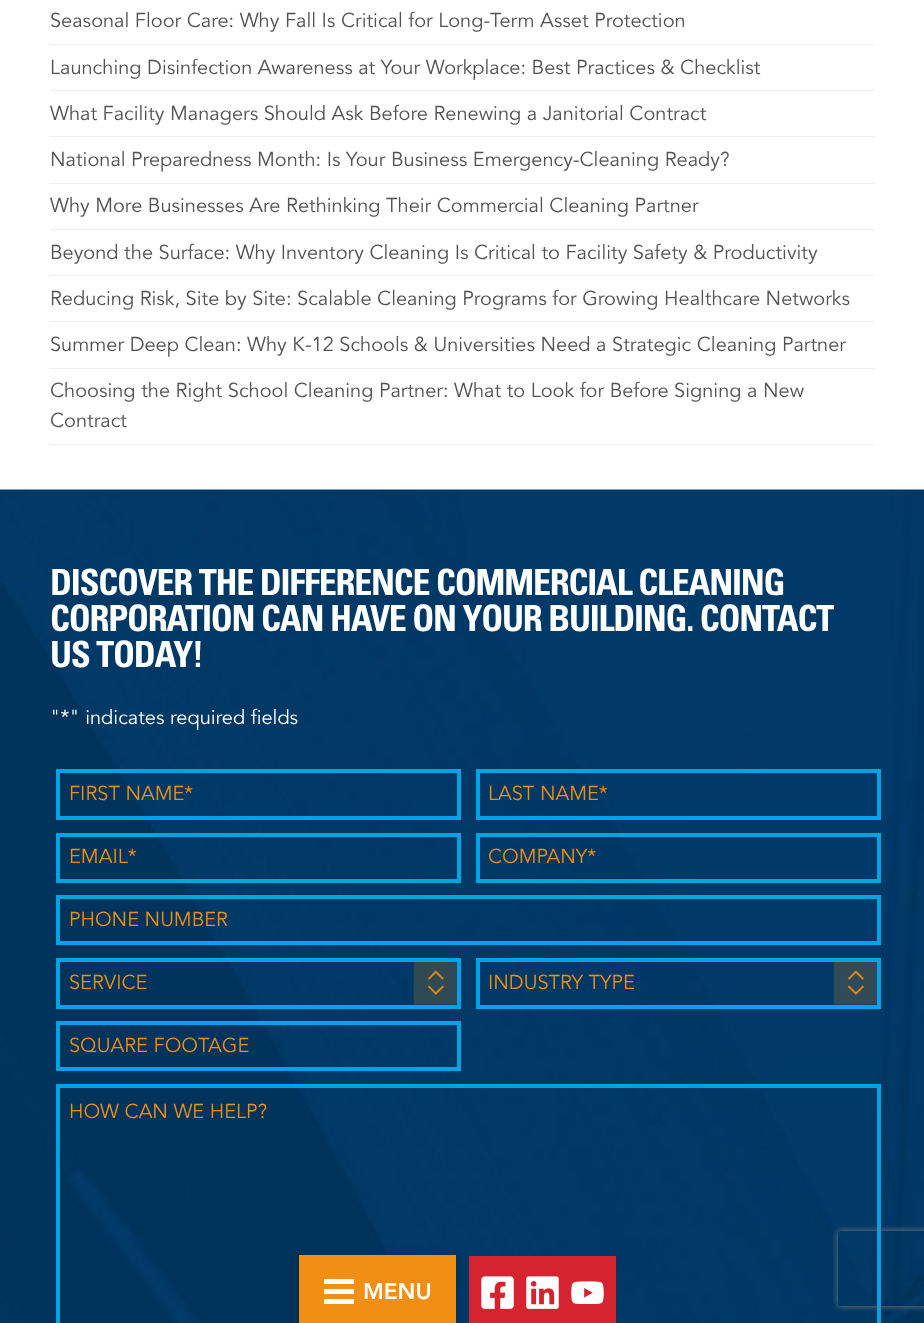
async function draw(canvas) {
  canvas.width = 924;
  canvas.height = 1323;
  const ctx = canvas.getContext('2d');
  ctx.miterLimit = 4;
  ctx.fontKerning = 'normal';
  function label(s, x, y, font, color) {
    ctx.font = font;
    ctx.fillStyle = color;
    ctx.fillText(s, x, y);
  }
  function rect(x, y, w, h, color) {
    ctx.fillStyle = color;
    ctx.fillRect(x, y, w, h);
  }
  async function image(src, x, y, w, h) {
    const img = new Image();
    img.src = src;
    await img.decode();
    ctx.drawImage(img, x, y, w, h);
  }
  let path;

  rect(0, 0, 924, 1323, '#fff');
  rect(50, 44, 825, 1, '#efefef');
  label('Seasonal Floor Care: Why Fall Is Critical for Long-Term Asset Protection', 50, 27, '20px "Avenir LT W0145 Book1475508"', '#525252');
  rect(50, 90, 825, 1, '#efefef');
  label('Launching Disinfection Awareness at Your Workplace: Best Practices & Checklist', 50, 74, '20px "Avenir LT W0145 Book1475508"', '#525252');
  rect(50, 136, 825, 1, '#efefef');
  label('What Facility Managers Should Ask Before Renewing a Janitorial Contract', 50, 120, '20px "Avenir LT W0145 Book1475508"', '#525252');
  rect(50, 183, 825, 1, '#efefef');
  label('National Preparedness Month: Is Your Business Emergency-Cleaning Ready?', 50, 166, '20px "Avenir LT W0145 Book1475508"', '#525252');
  rect(50, 229, 825, 1, '#efefef');
  label('Why More Businesses Are Rethinking Their Commercial Cleaning Partner', 50, 212, '20px "Avenir LT W0145 Book1475508"', '#525252');
  rect(50, 275, 825, 1, '#efefef');
  label('Beyond the Surface: Why Inventory Cleaning Is Critical to Facility Safety & Productivity', 50, 259, '20px "Avenir LT W0145 Book1475508"', '#525252');
  rect(50, 321, 825, 1, '#efefef');
  label('Reducing Risk, Site by Site: Scalable Cleaning Programs for Growing Healthcare Networks', 50, 305, '20px "Avenir LT W0145 Book1475508"', '#525252');
  rect(50, 368, 825, 1, '#efefef');
  label('Summer Deep Clean: Why K-12 Schools & Universities Need a Strategic Cleaning Partner', 50, 351, '20px "Avenir LT W0145 Book1475508"', '#525252');
  rect(50, 444, 825, 1, '#efefef');
  label('Choosing the Right School Cleaning Partner: What to Look for Before Signing a New', 50, 397, '20px "Avenir LT W0145 Book1475508"', '#525252');
  label('Contract', 50, 427, '20px "Avenir LT W0145 Book1475508"', '#525252');
  await image('assets/img1.png', 0, 489, 924, 834);
  ctx.letterSpacing = '-1.25px';
  label('DISCOVER THE DIFFERENCE COMMERCIAL CLEANING', 50, 595, 'bold 36px "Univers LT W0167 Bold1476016"', '#fff');
  label('CORPORATION CAN HAVE ON YOUR BUILDING. CONTACT', 50, 631, 'bold 36px "Univers LT W0167 Bold1476016"', '#fff');
  label('US TODAY!', 50, 667, 'bold 36px "Univers LT W0167 Bold1476016"', '#fff');
  ctx.letterSpacing = '0px';
  label('"*" indicates required fields', 50, 724, '20px "Avenir LT W0145 Book1475508"', '#fff');
  ctx.strokeStyle = '#00a3e6';
  ctx.lineWidth = 4;
  ctx.strokeRect(58, 771, 401, 47);
  label('FIRST NAME*', 69, 800, '20px "Avenir LT W0145 Book1475508"', '#ef8f13');
  ctx.strokeRect(478, 771, 401, 47);
  label('LAST NAME*', 488, 800, '20px "Avenir LT W0145 Book1475508"', '#ef8f13');
  ctx.strokeRect(58, 835, 401, 46);
  label('EMAIL*', 69, 863, '20px "Avenir LT W0145 Book1475508"', '#ef8f13');
  ctx.strokeRect(478, 835, 401, 46);
  label('COMPANY*', 488, 863, '20px "Avenir LT W0145 Book1475508"', '#ef8f13');
  ctx.strokeRect(58, 897, 821, 46);
  label('PHONE NUMBER', 69, 926, '20px "Avenir LT W0145 Book1475508"', '#ef8f13');
  await image('assets/img2.png', 413, 962, 44, 43);
  ctx.strokeRect(58, 960, 401, 47);
  label('SERVICE', 69, 989, '20px "Avenir LT W0145 Book1475508"', '#ef8f13');
  await image('assets/img3.png', 833, 962, 44, 43);
  ctx.strokeRect(478, 960, 401, 47);
  label('INDUSTRY TYPE', 488, 989, '20px "Avenir LT W0145 Book1475508"', '#ef8f13');
  ctx.strokeRect(58, 1023, 401, 46);
  label('SQUARE FOOTAGE', 69, 1052, '20px "Avenir LT W0145 Book1475508"', '#ef8f13');
  ctx.strokeRect(58, 1086, 821, 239);
  label('HOW CAN WE HELP?', 69, 1118, '20px "Avenir LT W0145 Book1475508"', '#ef8f13');
  ctx.fillStyle = '#00000033';
  ctx.filter = 'blur(4px)';
  ctx.beginPath();
  ctx.rect(299, 1255, 157, 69);
  ctx.fill();
  ctx.filter = 'none';
  rect(299, 1255, 157, 68, '#f08f14');
  rect(324, 1289, 30, 5, '#fff');
  rect(324, 1279, 30, 5, '#fff');
  rect(324, 1299, 30, 5, '#fff');
  label('MENU', 363, 1299, '900 22.5px "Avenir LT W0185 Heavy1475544"', '#fff');
  rect(469, 1256, 147, 67, '#d52330');
  await image('assets/img4.png', 481, 1276, 33, 33);
  await image('assets/img5.png', 526, 1276, 33, 33);
  await image('assets/img6.png', 571, 1281, 33, 23);
  ctx.save();
  path = new Path2D('M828 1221H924V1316H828ZM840.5 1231H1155.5C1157 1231 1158 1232 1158 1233.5V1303.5C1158 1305 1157 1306 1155.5 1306H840.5C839 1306 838 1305 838 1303.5V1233.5C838 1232 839 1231 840.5 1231Z');
  ctx.clip(path, 'evenodd');
  ctx.fillStyle = '#808080';
  ctx.filter = 'blur(3px)';
  ctx.beginPath();
  ctx.roundRect(838, 1231, 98, 75, 2.5);
  ctx.fill();
  ctx.filter = 'none';
  ctx.restore();
}

draw(document.querySelector('canvas'));
